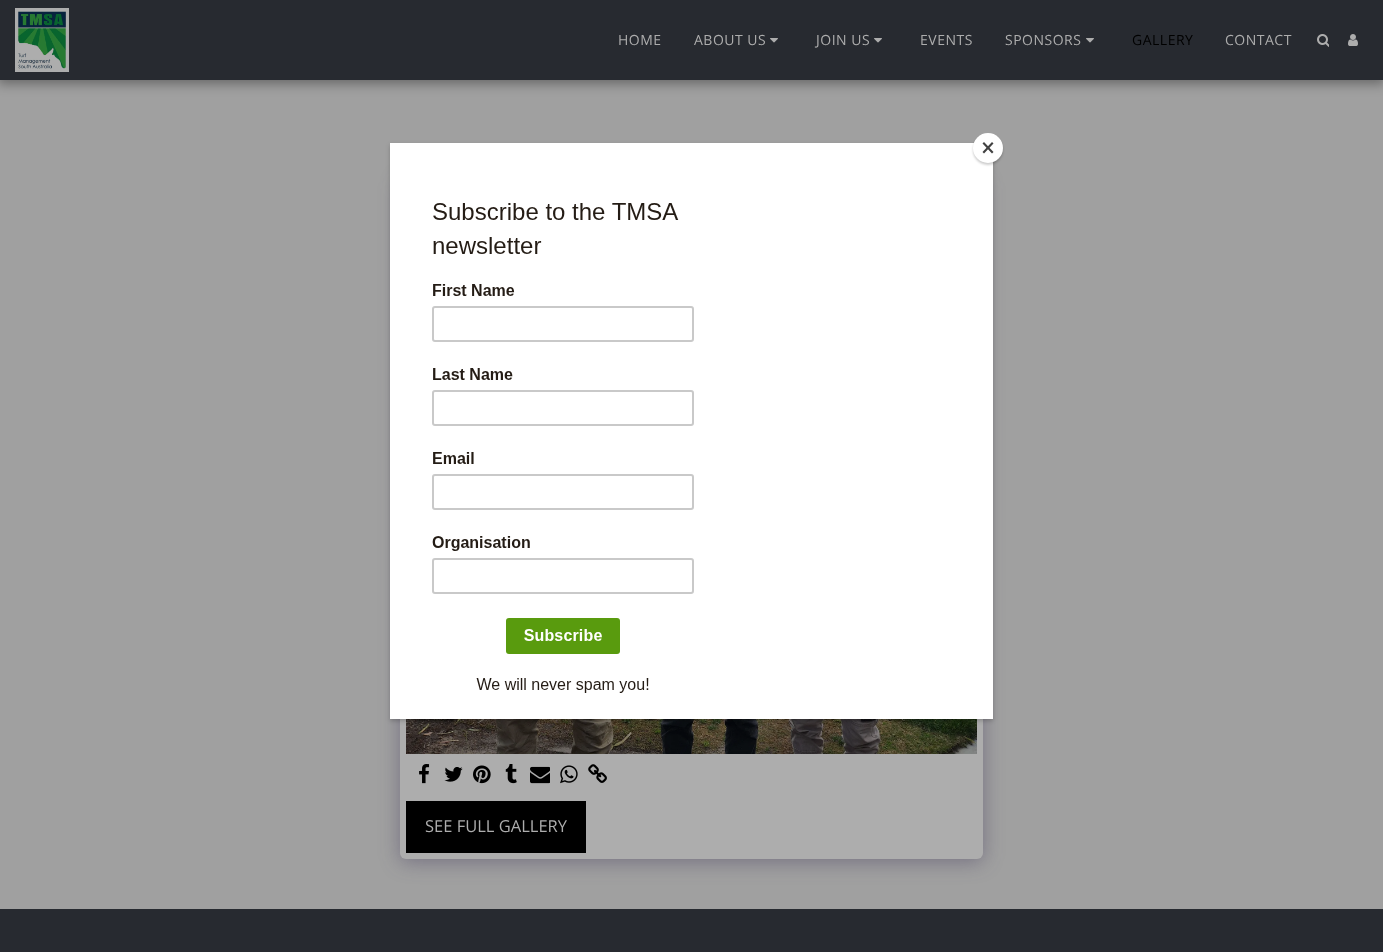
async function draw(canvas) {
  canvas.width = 1383;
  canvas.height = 952;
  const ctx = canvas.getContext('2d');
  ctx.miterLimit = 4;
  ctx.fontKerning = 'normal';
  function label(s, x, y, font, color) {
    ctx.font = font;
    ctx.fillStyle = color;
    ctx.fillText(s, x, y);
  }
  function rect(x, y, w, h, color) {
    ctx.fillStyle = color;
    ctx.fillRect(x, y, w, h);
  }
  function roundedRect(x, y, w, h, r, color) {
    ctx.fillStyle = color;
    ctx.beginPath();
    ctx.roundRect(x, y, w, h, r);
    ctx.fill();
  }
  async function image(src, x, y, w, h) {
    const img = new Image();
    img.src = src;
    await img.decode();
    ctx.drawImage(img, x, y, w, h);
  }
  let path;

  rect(0, 0, 1383, 952, '#a0a0a0');
  ctx.fillStyle = '#00000059';
  ctx.filter = 'blur(6px)';
  ctx.beginPath();
  ctx.rect(-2, 0, 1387, 84);
  ctx.fill();
  ctx.filter = 'none';
  rect(0, 0, 1383, 80, '#272a30');
  await image('assets/img1.png', 15, 8, 54, 64);
  ctx.letterSpacing = '0.5px';
  label('HOME', 618, 45, '14px Open Sans', '#adadad');
  label('ABOUT US', 694, 45, '14px Open Sans', '#adadad');
  await image('assets/img2.png', 770, 38, 8, 5);
  label('JOIN US', 816, 45, '14px Open Sans', '#adadad');
  await image('assets/img2.png', 874, 38, 8, 5);
  label('EVENTS', 920, 45, '14px Open Sans', '#adadad');
  label('SPONSORS', 1005, 45, '14px Open Sans', '#adadad');
  await image('assets/img2.png', 1086, 38, 8, 5);
  label('GALLERY', 1132, 45, '14px Open Sans', '#000');
  label('CONTACT', 1225, 45, '14px Open Sans', '#adadad');
  await image('assets/img3.png', 1317, 34, 12, 13);
  await image('assets/img4.png', 1348, 34, 10, 12);
  ctx.fillStyle = '#342b5366';
  ctx.filter = 'blur(10px)';
  ctx.beginPath();
  ctx.roundRect(400, 180, 583, 682, 6);
  ctx.fill();
  ctx.filter = 'none';
  roundedRect(400, 177, 583, 682, 6, '#adadad');
  await image('assets/img5.png', 406, 719, 571, 35);
  await image('assets/img6.png', 419, 764, 11, 20);
  await image('assets/img7.png', 444, 767, 19, 15);
  await image('assets/img8.png', 473, 765, 18, 19);
  await image('assets/img9.png', 505, 764, 12, 20);
  await image('assets/img10.png', 530, 766, 20, 18);
  await image('assets/img11.png', 560, 765, 18, 19);
  await image('assets/img12.png', 588, 764, 19, 19);
  rect(406, 801, 180, 52, '#000');
  ctx.letterSpacing = '0px';
  label('SEE FULL GALLERY', 425, 832, '16.5px Open Sans', '#adadad');
  rect(0, 909, 1383, 43, '#272a30');
  ctx.fillStyle = '#00000033';
  ctx.filter = 'blur(2px)';
  ctx.beginPath();
  ctx.rect(390, 145, 603, 576);
  ctx.fill();
  ctx.filter = 'none';
  await image('assets/img13.png', 390, 143, 603, 576);
  ctx.filter = 'blur(1px)';
  ctx.beginPath();
  ctx.roundRect(973, 135, 30, 30, 15);
  ctx.fill();
  ctx.filter = 'none';
  ctx.fillStyle = '#fff';
  ctx.beginPath();
  ctx.arc(988, 148, 15, 0, 2 * Math.PI);
  ctx.fill();
  ctx.fillStyle = '#414141';
  path = new Path2D('M992 142L993.5 143.5L984 153.5L982.5 152Z');
  ctx.fill(path);
  path = new Path2D('M982.5 143.5L984 142L993.5 152L992 153.5Z');
  ctx.fill(path);
}

draw(document.querySelector('canvas'));
